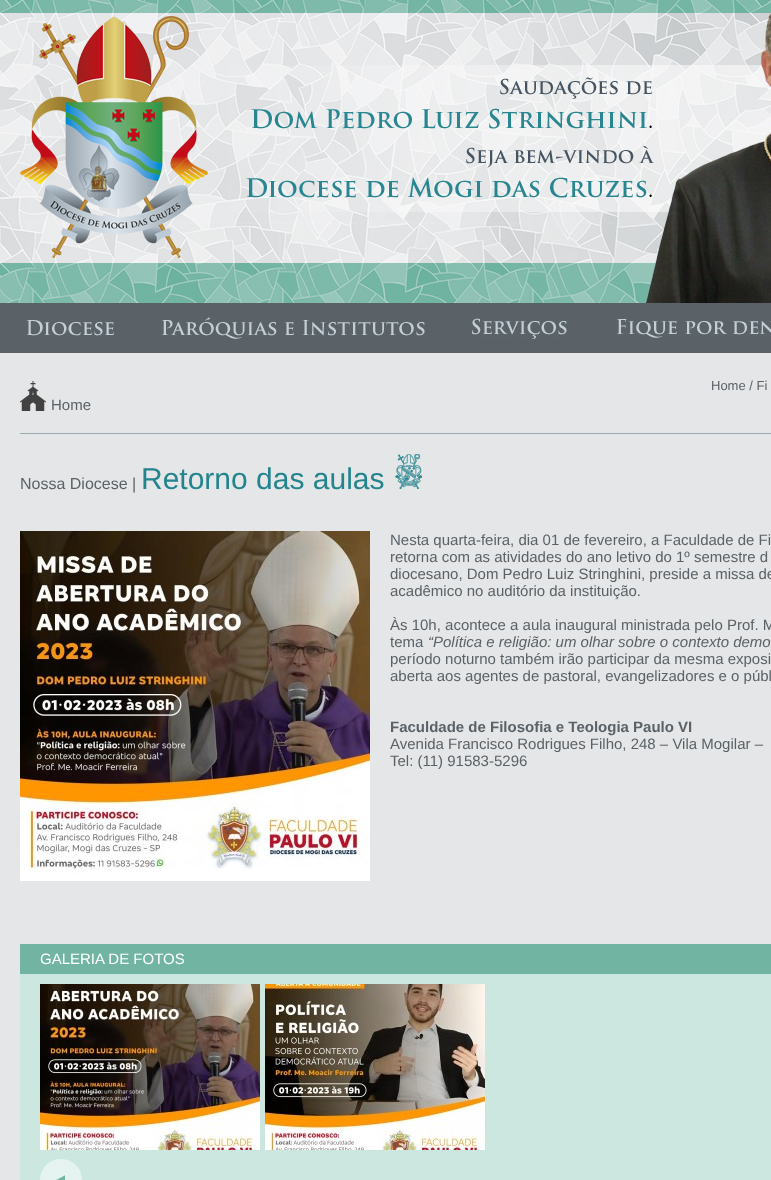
async function draw(canvas) {
  canvas.width = 771;
  canvas.height = 1180;
  const ctx = canvas.getContext('2d');
  ctx.miterLimit = 4;
  ctx.fontKerning = 'normal';
  function label(s, x, y, font, color) {
    ctx.font = font;
    ctx.fillStyle = color;
    ctx.fillText(s, x, y);
  }
  function rect(x, y, w, h, color) {
    ctx.fillStyle = color;
    ctx.fillRect(x, y, w, h);
  }
  async function image(src, x, y, w, h) {
    const img = new Image();
    img.src = src;
    await img.decode();
    ctx.drawImage(img, x, y, w, h);
  }

  rect(0, 0, 771, 1180, '#e4e6e7');
  await image('assets/img1.png', 0, 0, 241, 303);
  await image('assets/img2.png', 241, 0, 530, 303);
  await image('assets/img3.png', 20, 16, 188, 242);
  rect(0, 303, 771, 50, '#5b6267');
  await image('assets/img4.png', 26, 320, 88, 16);
  await image('assets/img5.png', 161, 317, 264, 22);
  await image('assets/img6.png', 472, 318, 95, 21);
  await image('assets/img7.png', 616, 318, 155, 20);
  rect(20, 433, 751, 1, '#9ca9b1');
  label('Home / Fi', 711, 390, '13px Liberation Sans', '#5b6267');
  await image('assets/img8.png', 20, 381, 26, 30);
  label('Home', 51, 410, '15px Liberation Sans', '#5b6267');
  label('Nossa Diocese |', 20, 489, '16px Liberation Sans', '#5b6267');
  label('Retorno das aulas', 141, 489, '30px Liberation Sans', '#24848e');
  await image('assets/img9.png', 395, 454, 27, 35);
  await image('assets/img10.png', 20, 531, 350, 350);
  label('Nesta quarta-feira, dia 01 de fevereiro, a Faculdade de Fi', 390, 545, '15px Liberation Sans', '#5b6267');
  label('retorna com as atividades do ano letivo do 1º semestre d', 390, 562, '15px Liberation Sans', '#5b6267');
  label('diocesano, Dom Pedro Luiz Stringhini, preside a missa de', 390, 579, '15px Liberation Sans', '#5b6267');
  label('acadêmico no auditório da instituição.', 390, 596, '15px Liberation Sans', '#5b6267');
  label('Às 10h, acontece a aula inaugural ministrada pelo Prof. M', 390, 630, '15px Liberation Sans', '#5b6267');
  label('tema', 390, 647, '15px Liberation Sans', '#5b6267');
  label('“Política e religião: um olhar sobre o contexto demo', 428, 647, 'italic 15px Liberation Sans', '#5b6267');
  label('período noturno também irão participar da mesma exposi', 390, 664, '15px Liberation Sans', '#5b6267');
  label('aberta aos agentes de pastoral, evangelizadores e o públ', 390, 681, '15px Liberation Sans', '#5b6267');
  label('Faculdade de Filosofia e Teologia Paulo VI', 390, 732, 'bold 15px Liberation Sans', '#5b6267');
  label('Avenida Francisco Rodrigues Filho, 248 – Vila Mogilar –', 390, 749, '15px Liberation Sans', '#5b6267');
  label('Tel: (11) 91583-5296', 390, 766, '15px Liberation Sans', '#5b6267');
  rect(20, 974, 751, 206, '#cbe7e0');
  rect(20, 944, 751, 30, '#71b4a2');
  label('GALERIA DE FOTOS', 40, 964, '15px Liberation Sans', '#fff');
  await image('assets/img11.png', 40, 984, 220, 166);
  await image('assets/img12.png', 265, 984, 220, 166);
  await image('assets/img13.png', 40, 1159, 42, 21);
}

draw(document.querySelector('canvas'));
